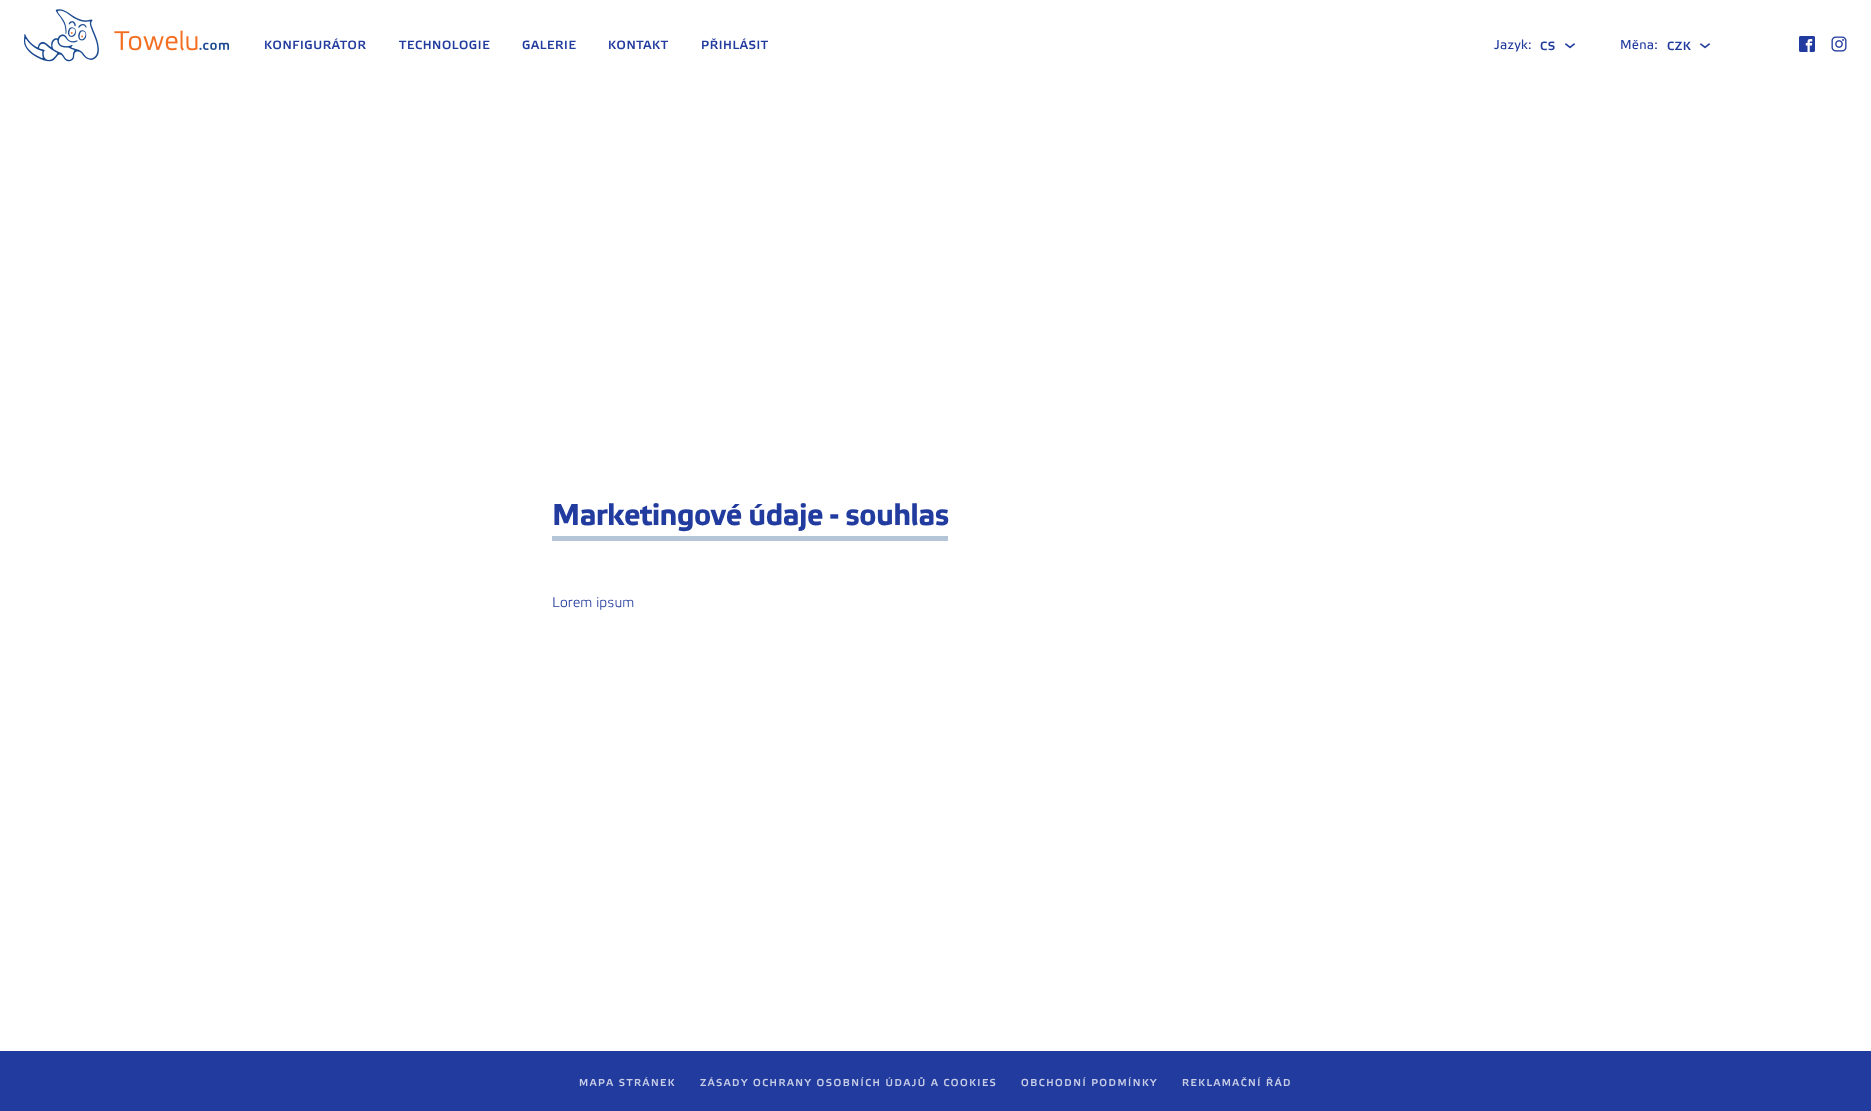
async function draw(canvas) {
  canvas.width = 1871;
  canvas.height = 1111;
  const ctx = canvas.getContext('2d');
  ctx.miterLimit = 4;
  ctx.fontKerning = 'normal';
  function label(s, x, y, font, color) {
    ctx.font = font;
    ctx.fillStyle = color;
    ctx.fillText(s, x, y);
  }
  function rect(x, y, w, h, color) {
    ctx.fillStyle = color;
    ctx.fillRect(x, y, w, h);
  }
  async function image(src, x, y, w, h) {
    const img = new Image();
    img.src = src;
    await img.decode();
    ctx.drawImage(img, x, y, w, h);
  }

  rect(0, 0, 1871, 1111, '#fff');
  await image('assets/img2.png', 70, 30, 128, 21);
  await image('assets/img1.png', 24, 9, 206, 53);
  ctx.letterSpacing = '0.6px';
  label('KONFIGURÁTOR', 264, 49, '500 12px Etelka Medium', '#223b9e');
  label('TECHNOLOGIE', 399, 49, '500 12px Etelka Medium', '#223b9e');
  label('GALERIE', 522, 49, '500 12px Etelka Medium', '#223b9e');
  label('KONTAKT', 608, 49, '500 12px Etelka Medium', '#223b9e');
  label('PŘIHLÁSIT', 701, 49, '500 12px Etelka Medium', '#223b9e');
  ctx.letterSpacing = '0.25px';
  label('Jazyk:', 1494, 49, '13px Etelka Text', '#223b9e');
  ctx.letterSpacing = '0.6px';
  label('CS', 1540, 50, '500 12px Etelka Medium', '#223b9e');
  await image('assets/img3.png', 1564, 43, 12, 6);
  ctx.letterSpacing = '0.25px';
  label('Měna:', 1620, 49, '13px Etelka Text', '#223b9e');
  ctx.letterSpacing = '0.6px';
  label('CZK', 1667, 50, '500 12px Etelka Medium', '#223b9e');
  await image('assets/img3.png', 1699, 43, 12, 6);
  await image('assets/img4.png', 1799, 36, 16, 16);
  await image('assets/img5.png', 1831, 36, 16, 16);
  ctx.letterSpacing = '-0.75px';
  label('Marketingové údaje - souhlas', 552, 525, 'bold 30px Etelka Text', '#223b9e');
  rect(552, 536, 396, 5, '#b5c5d8');
  ctx.letterSpacing = '0px';
  label('Lorem ipsum', 552, 607, '300 14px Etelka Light', '#223b9e');
  rect(0, 1051, 1871, 60, '#223b9e');
  ctx.letterSpacing = '1.5px';
  label('MAPA STRÁNEK', 579, 1086, '500 10px Etelka Medium', '#c8cee7');
  label('ZÁSADY OCHRANY OSOBNÍCH ÚDAJŮ A COOKIES', 700, 1086, '500 10px Etelka Medium', '#c8cee7');
  label('OBCHODNÍ PODMÍNKY', 1021, 1086, '500 10px Etelka Medium', '#c8cee7');
  label('REKLAMAČNÍ ŘÁD', 1182, 1086, '500 10px Etelka Medium', '#c8cee7');
}

draw(document.querySelector('canvas'));
